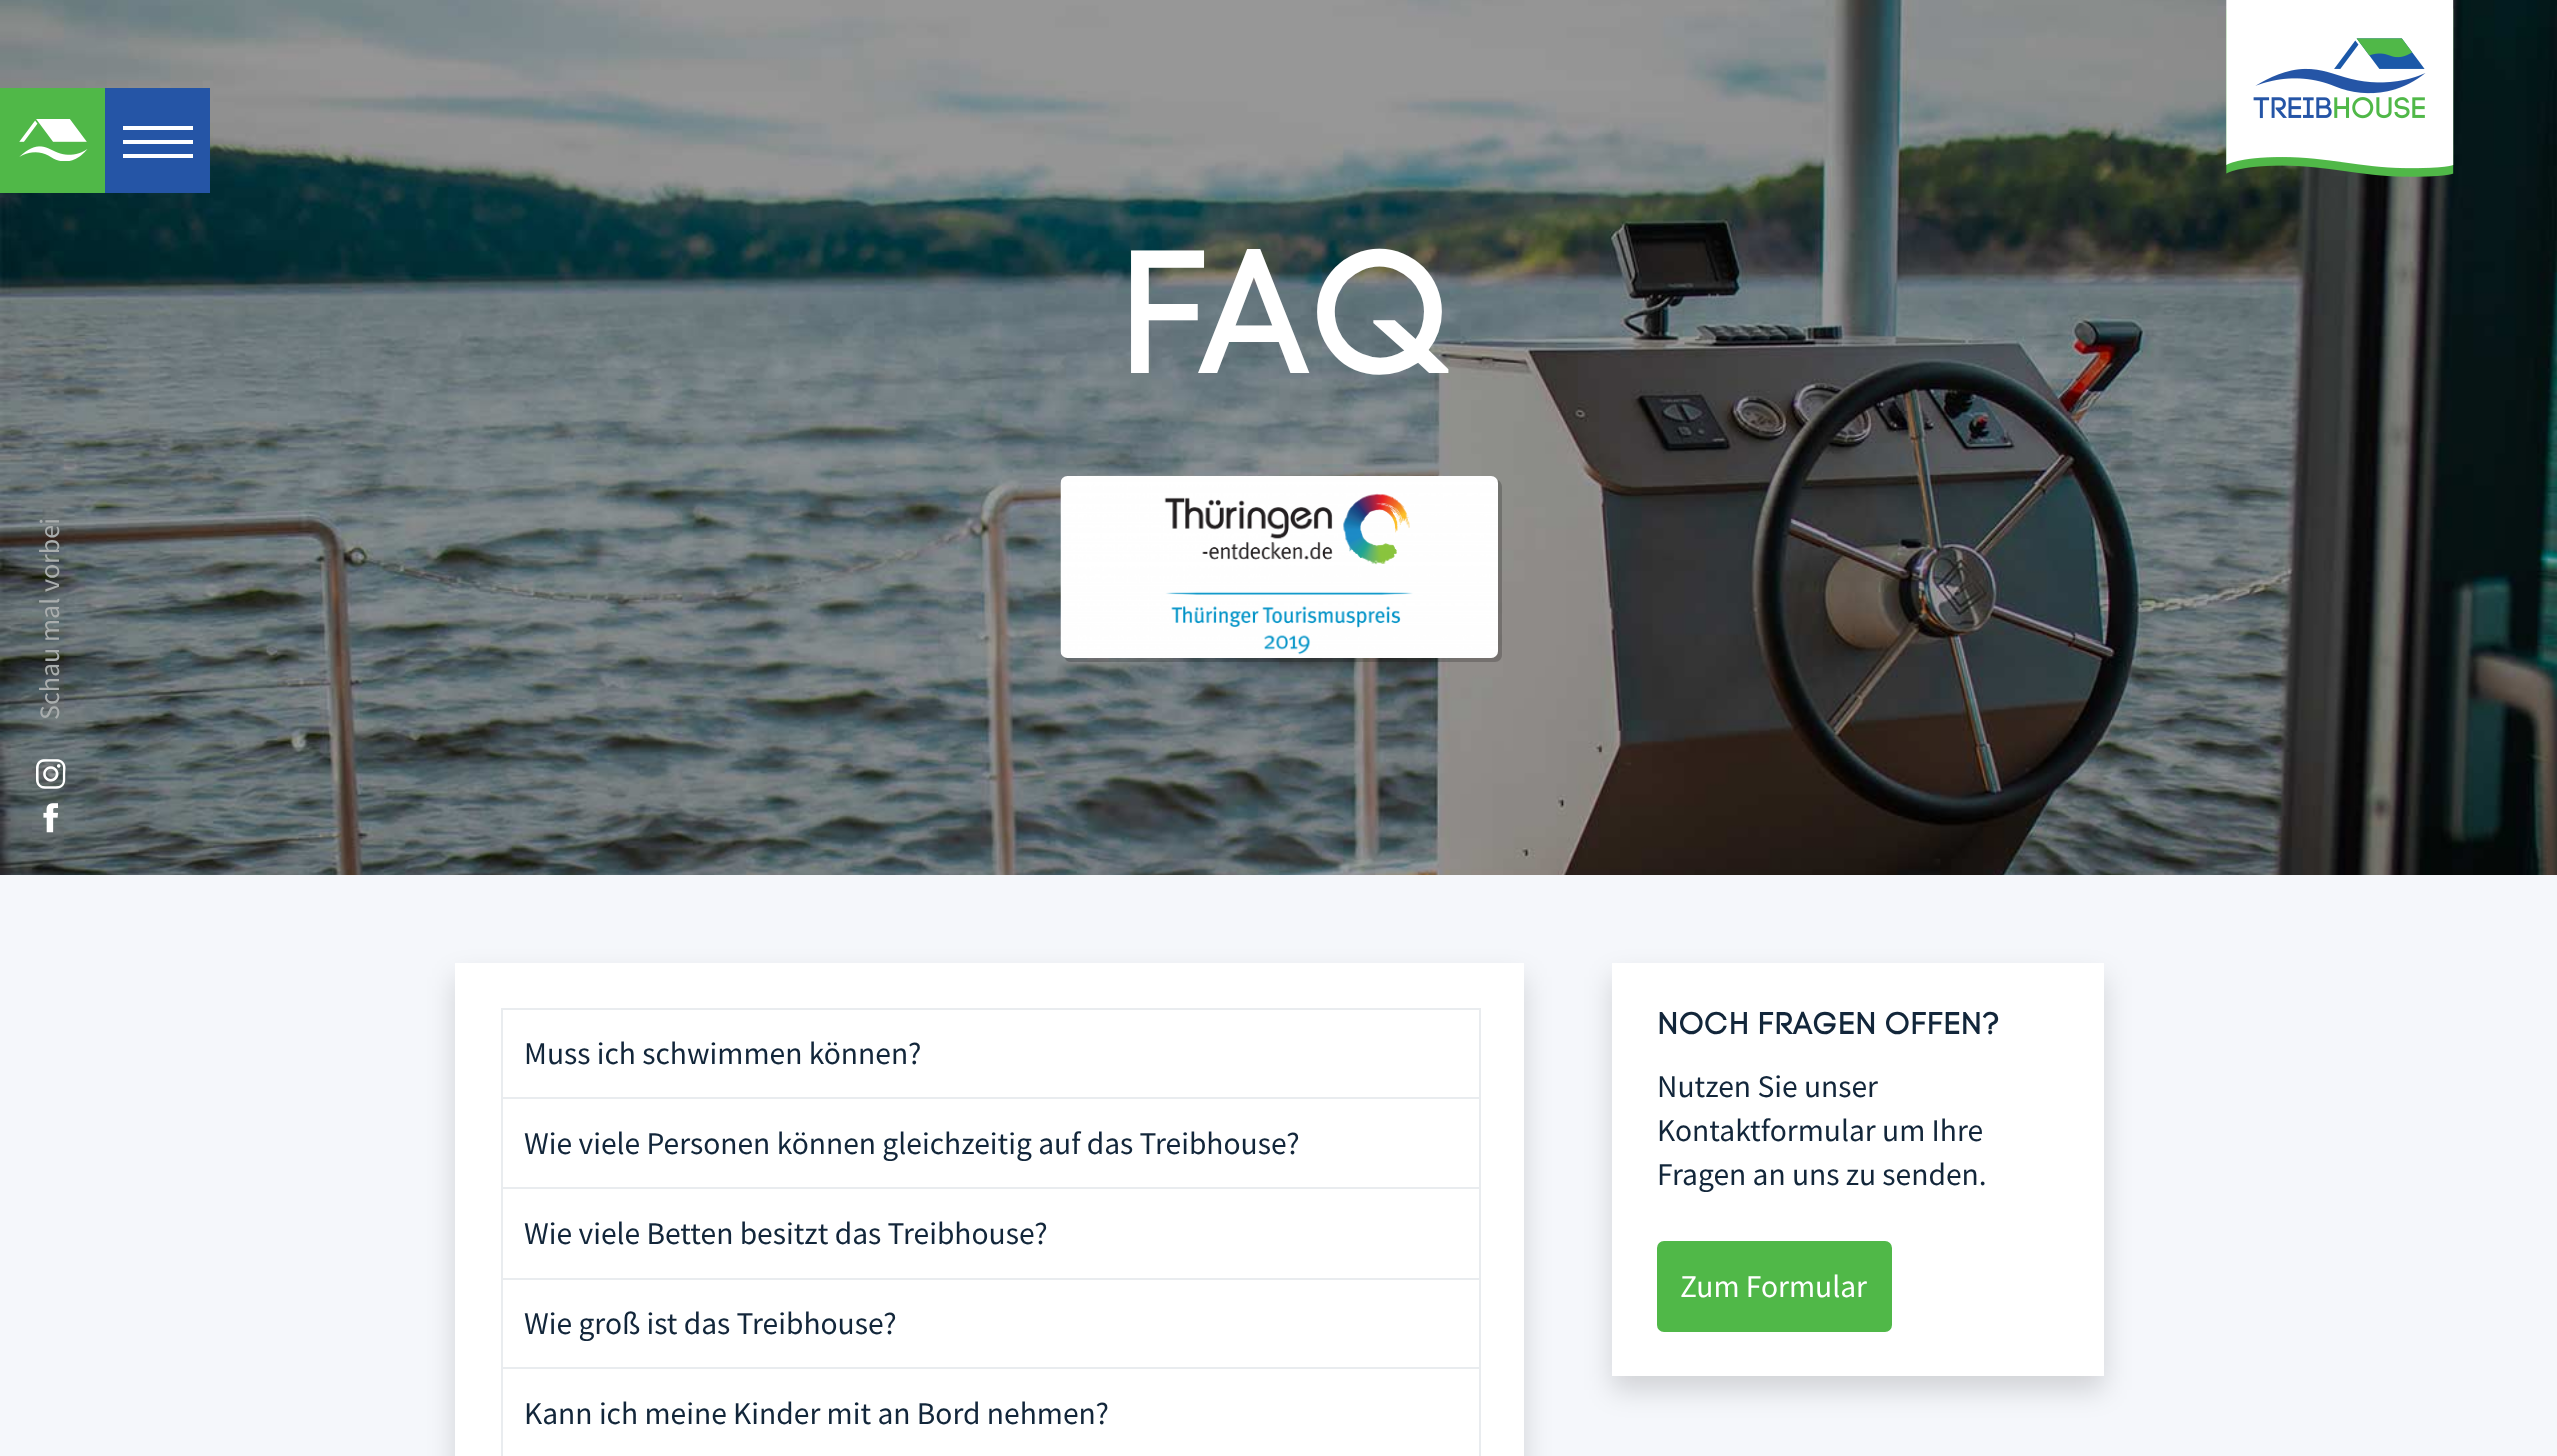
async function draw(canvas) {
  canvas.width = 2557;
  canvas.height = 1456;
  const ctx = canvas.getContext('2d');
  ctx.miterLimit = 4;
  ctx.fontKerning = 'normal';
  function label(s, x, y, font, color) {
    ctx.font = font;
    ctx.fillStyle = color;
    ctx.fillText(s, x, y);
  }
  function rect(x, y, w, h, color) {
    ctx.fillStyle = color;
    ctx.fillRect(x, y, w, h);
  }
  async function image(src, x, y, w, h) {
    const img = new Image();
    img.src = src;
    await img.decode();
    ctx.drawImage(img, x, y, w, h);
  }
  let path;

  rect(0, 0, 2557, 1456, '#f5f7fb');
  await image('assets/img3.png', 0, 0, 2557, 875);
  rect(0, 88, 105, 105, '#50b848');
  await image('assets/img1.png', 19, 119, 69, 42);
  rect(105, 88, 105, 105, '#2555a6');
  rect(123, 140, 70, 4, '#fff');
  rect(123, 126, 70, 4, '#fff');
  rect(123, 154, 70, 4, '#fff');
  await image('assets/img2.png', 2226, 0, 228, 177);
  label('FAQ', 1116, 373, '175px "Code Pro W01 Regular"', '#fff');
  ctx.fillStyle = '#00000033';
  path = new Path2D('M1064 657C1065 660 1068 662 1071 662H1495C1499 662 1502 659 1502 655V487C1502 484 1500 481 1498 480V483V651C1498 655 1495 658 1491 658H1068Z');
  ctx.fill(path);
  await image('assets/img4.png', 1060, 476, 438, 182);
  ctx.font = '28px Source Sans Pro';
  ctx.fillStyle = '#a9adad';
  ctx.save();
  ctx.translate(59, 720);
  ctx.rotate(-90 * Math.PI / 180);
  ctx.fillText('Schau mal vorbei', 0, 0);
  ctx.restore();
  await image('assets/img5.png', 36, 759, 30, 30);
  await image('assets/img6.png', 43, 803, 15, 30);
  ctx.fillStyle = '#00000026';
  ctx.filter = 'blur(14px)';
  ctx.beginPath();
  ctx.rect(455, 977, 1069, 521);
  ctx.fill();
  ctx.filter = 'none';
  rect(455, 963, 1069, 493, '#fff');
  rect(501, 1008, 980, 2, '#e9ecef');
  rect(1479, 1008, 2, 448, '#e9ecef');
  rect(501, 1008, 2, 448, '#e9ecef');
  rect(502, 1097, 977, 2, '#e9ecef');
  label('Muss ich schwimmen können?', 524, 1064, '31.5px Source Sans Pro', '#12263a');
  rect(502, 1187, 977, 2, '#e9ecef');
  label('Wie viele Personen können gleichzeitig auf das Treibhouse?', 524, 1154, '31.5px Source Sans Pro', '#12263a');
  rect(502, 1278, 977, 2, '#e9ecef');
  label('Wie viele Betten besitzt das Treibhouse?', 524, 1244, '31.5px Source Sans Pro', '#12263a');
  rect(502, 1367, 977, 2, '#e9ecef');
  label('Wie groß ist das Treibhouse?', 524, 1334, '31.5px Source Sans Pro', '#12263a');
  label('Kann ich meine Kinder mit an Bord nehmen?', 524, 1424, '31.5px Source Sans Pro', '#12263a');
  ctx.fillStyle = '#00000026';
  ctx.filter = 'blur(14px)';
  ctx.beginPath();
  ctx.rect(1612, 977, 492, 413);
  ctx.fill();
  ctx.filter = 'none';
  rect(1612, 963, 492, 413, '#fff');
  label('NOCH FRAGEN OFFEN?', 1657, 1034, '31.5px "Code Pro W01 Regular"', '#12263a');
  label('Nutzen Sie unser', 1657, 1097, '31.5px Source Sans Pro', '#12263a');
  label('Kontaktformular um Ihre', 1657, 1141, '31.5px Source Sans Pro', '#12263a');
  label('Fragen an uns zu senden.', 1657, 1185, '31.5px Source Sans Pro', '#12263a');
  ctx.fillStyle = '#50b848';
  ctx.beginPath();
  ctx.roundRect(1658, 1242, 233, 89, 6);
  ctx.fill();
  ctx.strokeStyle = '#50b848';
  ctx.lineWidth = 2;
  ctx.stroke();
  label('Zum Formular', 1680, 1297, '31.5px Source Sans Pro', '#fff');
}

draw(document.querySelector('canvas'));
